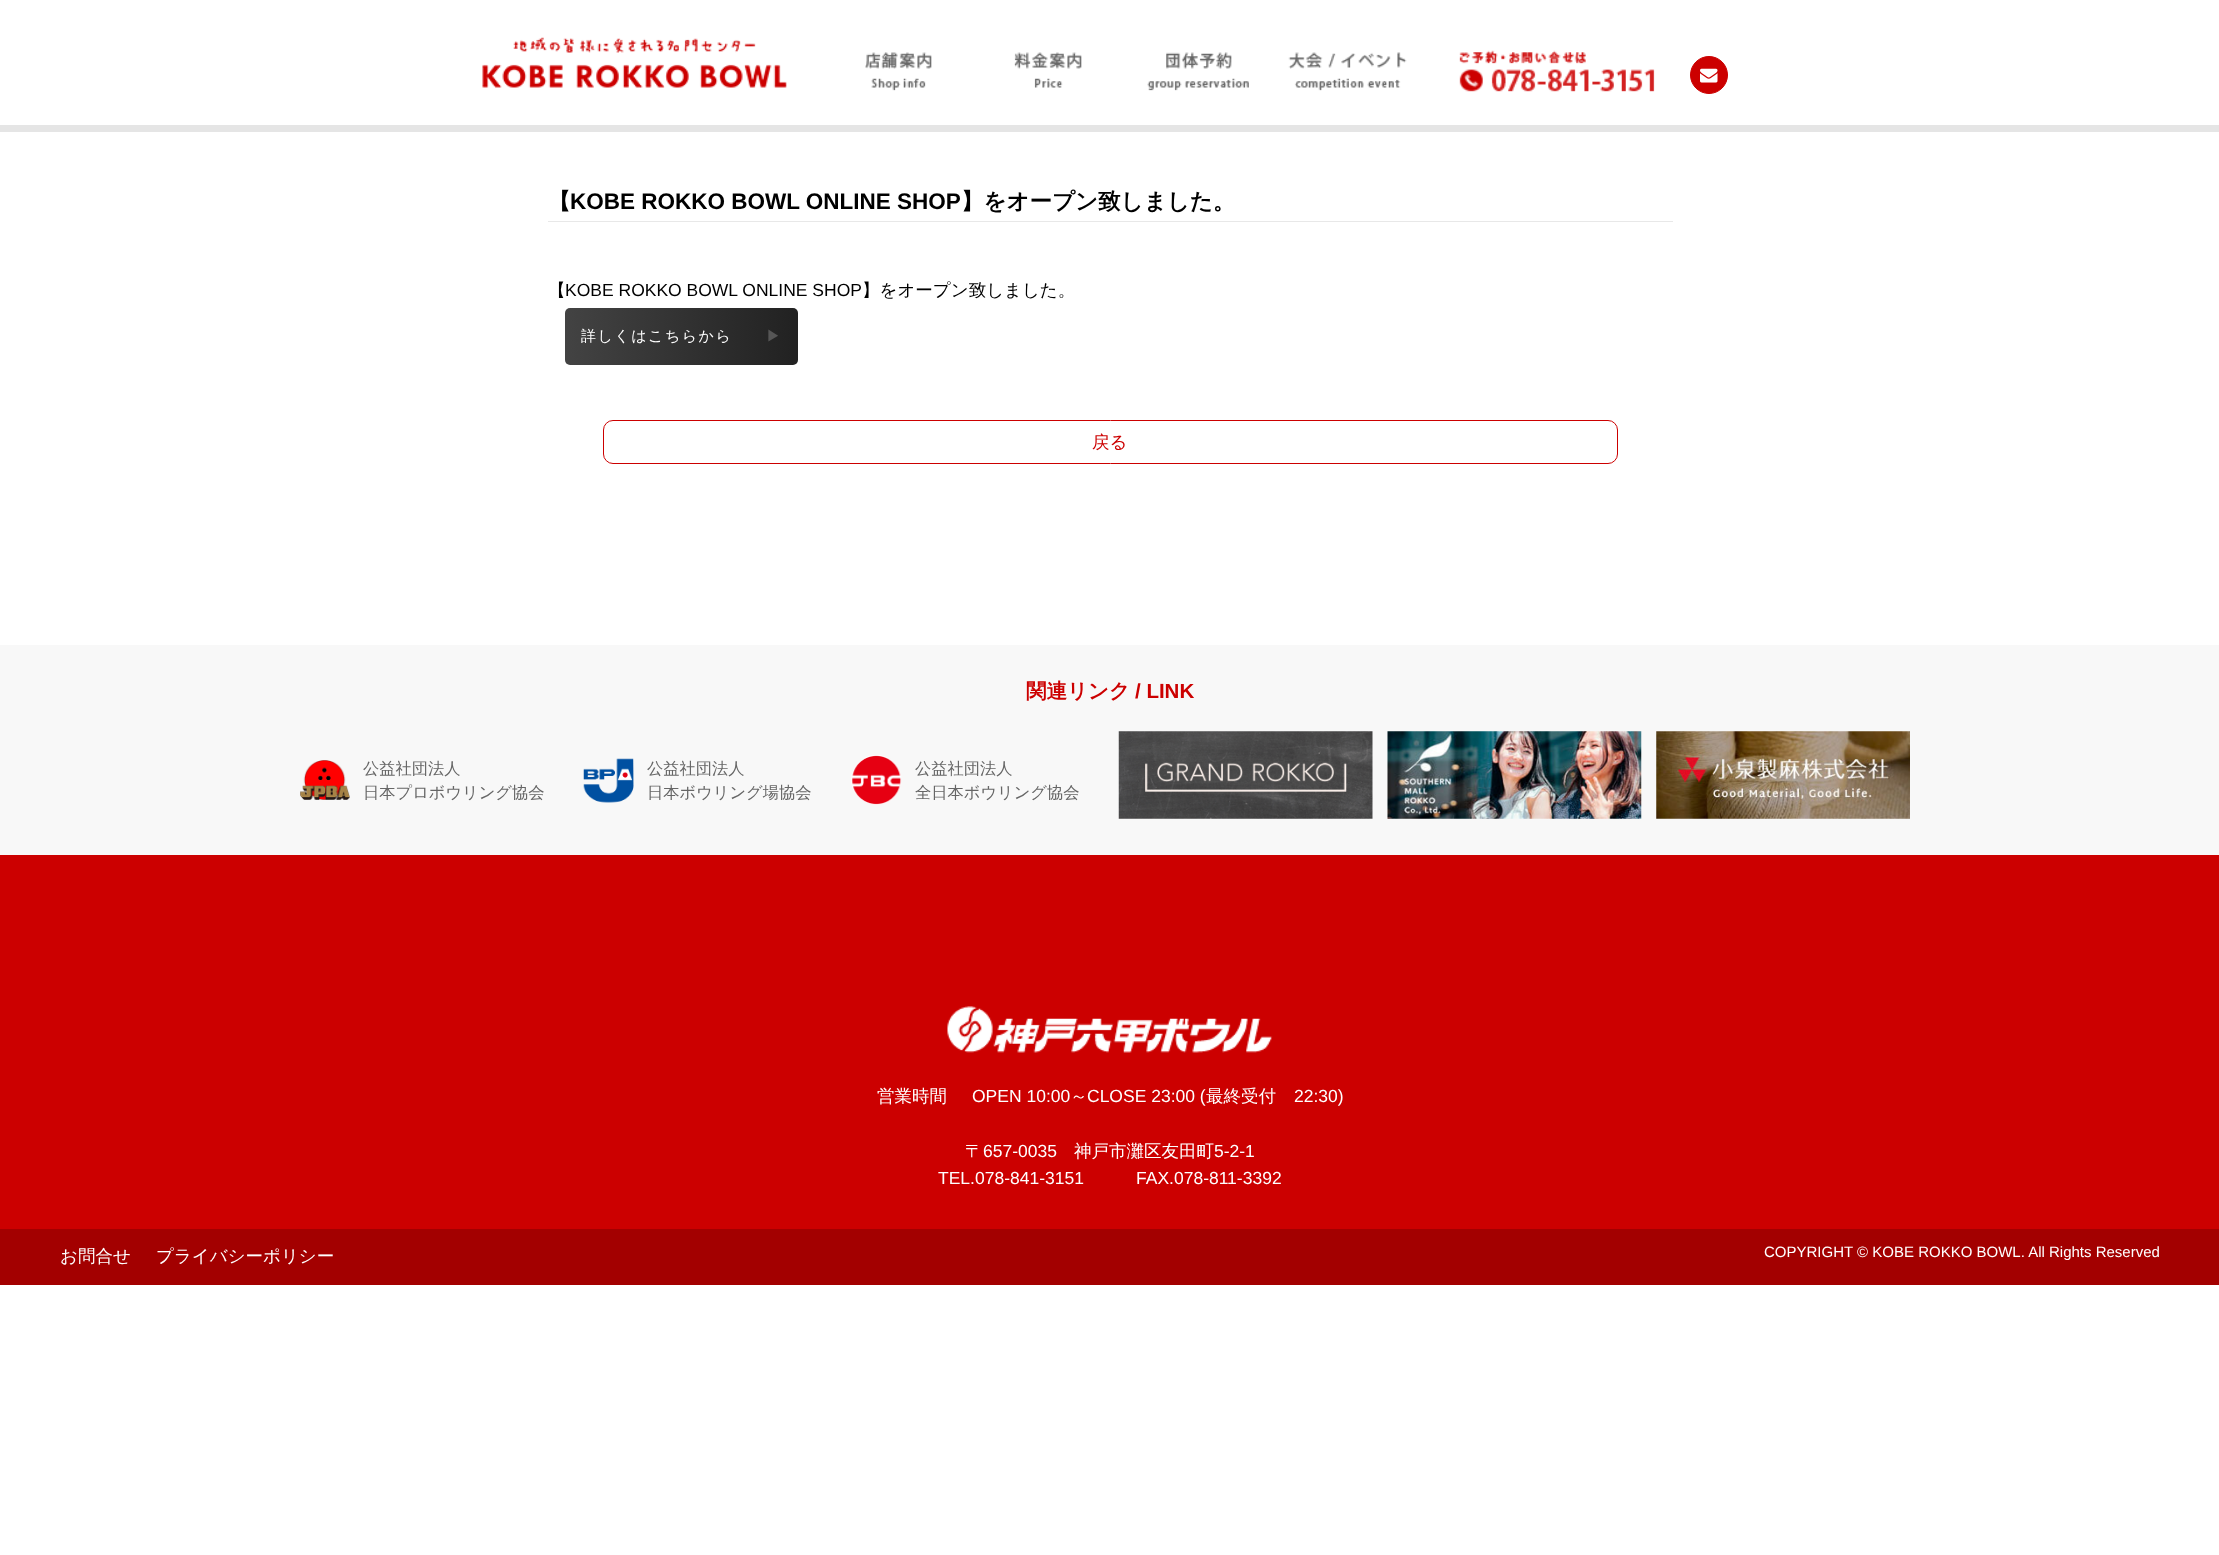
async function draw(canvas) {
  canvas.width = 2219;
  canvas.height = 1555;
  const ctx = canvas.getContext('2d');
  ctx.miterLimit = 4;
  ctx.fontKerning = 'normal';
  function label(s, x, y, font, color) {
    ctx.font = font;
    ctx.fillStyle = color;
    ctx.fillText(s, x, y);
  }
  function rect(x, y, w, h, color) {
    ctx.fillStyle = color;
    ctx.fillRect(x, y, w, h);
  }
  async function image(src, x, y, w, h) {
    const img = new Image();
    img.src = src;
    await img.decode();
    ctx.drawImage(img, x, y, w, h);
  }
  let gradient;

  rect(0, 0, 2219, 1555, '#fff');
  rect(0, 125, 2219, 7, '#e5e5e5');
  await image('assets/img1.png', 482, 37, 305, 51);
  await image('assets/img2.png', 865, 52, 67, 39);
  await image('assets/img3.png', 1014, 52, 68, 36);
  await image('assets/img4.png', 1147, 52, 102, 39);
  await image('assets/img5.png', 1288, 52, 119, 39);
  await image('assets/img6.png', 1459, 50, 196, 42);
  ctx.fillStyle = '#c00';
  ctx.beginPath();
  ctx.arc(1709, 75, 18.5, 0, 2 * Math.PI);
  ctx.fill();
  ctx.strokeStyle = '#c00';
  ctx.stroke();
  await image('assets/img7.png', 1700, 68, 18, 15);
  rect(548, 221, 1125, 1, '#e8e8e8');
  label('【', 548, 209, 'bold 22.5px WenQuanYi Zen Hei', '#000');
  label('KOBE ROKKO BOWL ONLINE SHOP', 570, 209, 'bold 22.5px Liberation Sans', '#000');
  label('】をオープン致しました。', 961, 209, 'bold 22.5px WenQuanYi Zen Hei', '#000');
  label('【', 548, 296, '500 17.5px WenQuanYi Zen Hei', '#000');
  label('KOBE ROKKO BOWL ONLINE SHOP', 565, 296, '17.5px Liberation Sans', '#000');
  label('】をオープン致しました。', 862, 296, '500 17.5px WenQuanYi Zen Hei', '#000');
  gradient = ctx.createLinearGradient(565, 336, 1030, 336);
  gradient.addColorStop(0, '#434343');
  gradient.addColorStop(1, '#000');
  ctx.fillStyle = gradient;
  ctx.beginPath();
  ctx.roundRect(565, 308, 233, 57, 5);
  ctx.fill();
  ctx.letterSpacing = '1.5px';
  label('詳しくはこちらから', 581, 341, '500 15px WenQuanYi Zen Hei', '#fff');
  label('▶', 766, 341, '500 15px WenQuanYi Zen Hei', '#565656');
  ctx.beginPath();
  ctx.roundRect(603.5, 420.5, 1014, 43, 9.5);
  ctx.stroke();
  ctx.letterSpacing = '0px';
  label('戻る', 1092, 448, '500 17.5px WenQuanYi Zen Hei', '#c00');
  rect(0, 645, 2219, 210, '#f8f8f8');
  label('関連リンク', 1026, 698, 'bold 20.5px WenQuanYi Zen Hei', '#c00');
  label('/ LINK', 1135, 698, 'bold 20.5px Liberation Sans', '#c00');
  await image('assets/img8.png', 300, 760, 50, 40);
  label('公益社団法人', 363, 774, '500 16.25px WenQuanYi Zen Hei', '#666');
  label('日本プロボウリング協会', 363, 798, '500 16.25px WenQuanYi Zen Hei', '#666');
  await image('assets/img9.png', 583, 758, 51, 45);
  label('公益社団法人', 647, 774, '500 16.25px WenQuanYi Zen Hei', '#666');
  label('日本ボウリング場協会', 647, 798, '500 16.25px WenQuanYi Zen Hei', '#666');
  await image('assets/img10.png', 851, 755, 51, 50);
  label('公益社団法人', 915, 774, '500 16.25px WenQuanYi Zen Hei', '#666');
  label('全日本ボウリング協会', 915, 798, '500 16.25px WenQuanYi Zen Hei', '#666');
  await image('assets/img11.png', 1118, 731, 255, 88);
  await image('assets/img12.png', 1387, 731, 255, 88);
  await image('assets/img13.png', 1656, 731, 254, 88);
  rect(0, 855, 2219, 374, '#c00');
  await image('assets/img14.png', 947, 1006, 326, 47);
  label('営業時間', 877, 1102, '500 17.5px WenQuanYi Zen Hei', '#fff');
  label('OPEN 10:00', 972, 1102, '17.5px Liberation Sans', '#fff');
  label('～', 1070, 1102, '500 17.5px WenQuanYi Zen Hei', '#fff');
  label('CLOSE 23:00 (', 1087, 1102, '17.5px Liberation Sans', '#fff');
  label('最終受付', 1206, 1102, '500 17.5px WenQuanYi Zen Hei', '#fff');
  label('22:30)', 1294, 1102, '17.5px Liberation Sans', '#fff');
  label('〒', 965, 1157, '500 17.5px WenQuanYi Zen Hei', '#fff');
  label('657-0035', 983, 1157, '17.5px Liberation Sans', '#fff');
  label('神戸市灘区友田町', 1074, 1157, '500 17.5px WenQuanYi Zen Hei', '#fff');
  label('5-2-1', 1214, 1157, '17.5px Liberation Sans', '#fff');
  label('TEL.078-841-3151', 938, 1184, '17.5px Liberation Sans', '#fff');
  label('FAX.078-811-3392', 1136, 1184, '17.5px Liberation Sans', '#fff');
  rect(0, 1229, 2219, 56, '#a30000');
  label('お問合せ', 60, 1262, '500 17.5px WenQuanYi Zen Hei', '#fff');
  label('プライバシーポリシー', 156, 1262, '500 17.5px WenQuanYi Zen Hei', '#fff');
  label('COPYRIGHT © KOBE ROKKO BOWL. All Rights Reserved', 1764, 1257, '15px Liberation Sans', '#fff');
}

draw(document.querySelector('canvas'));
